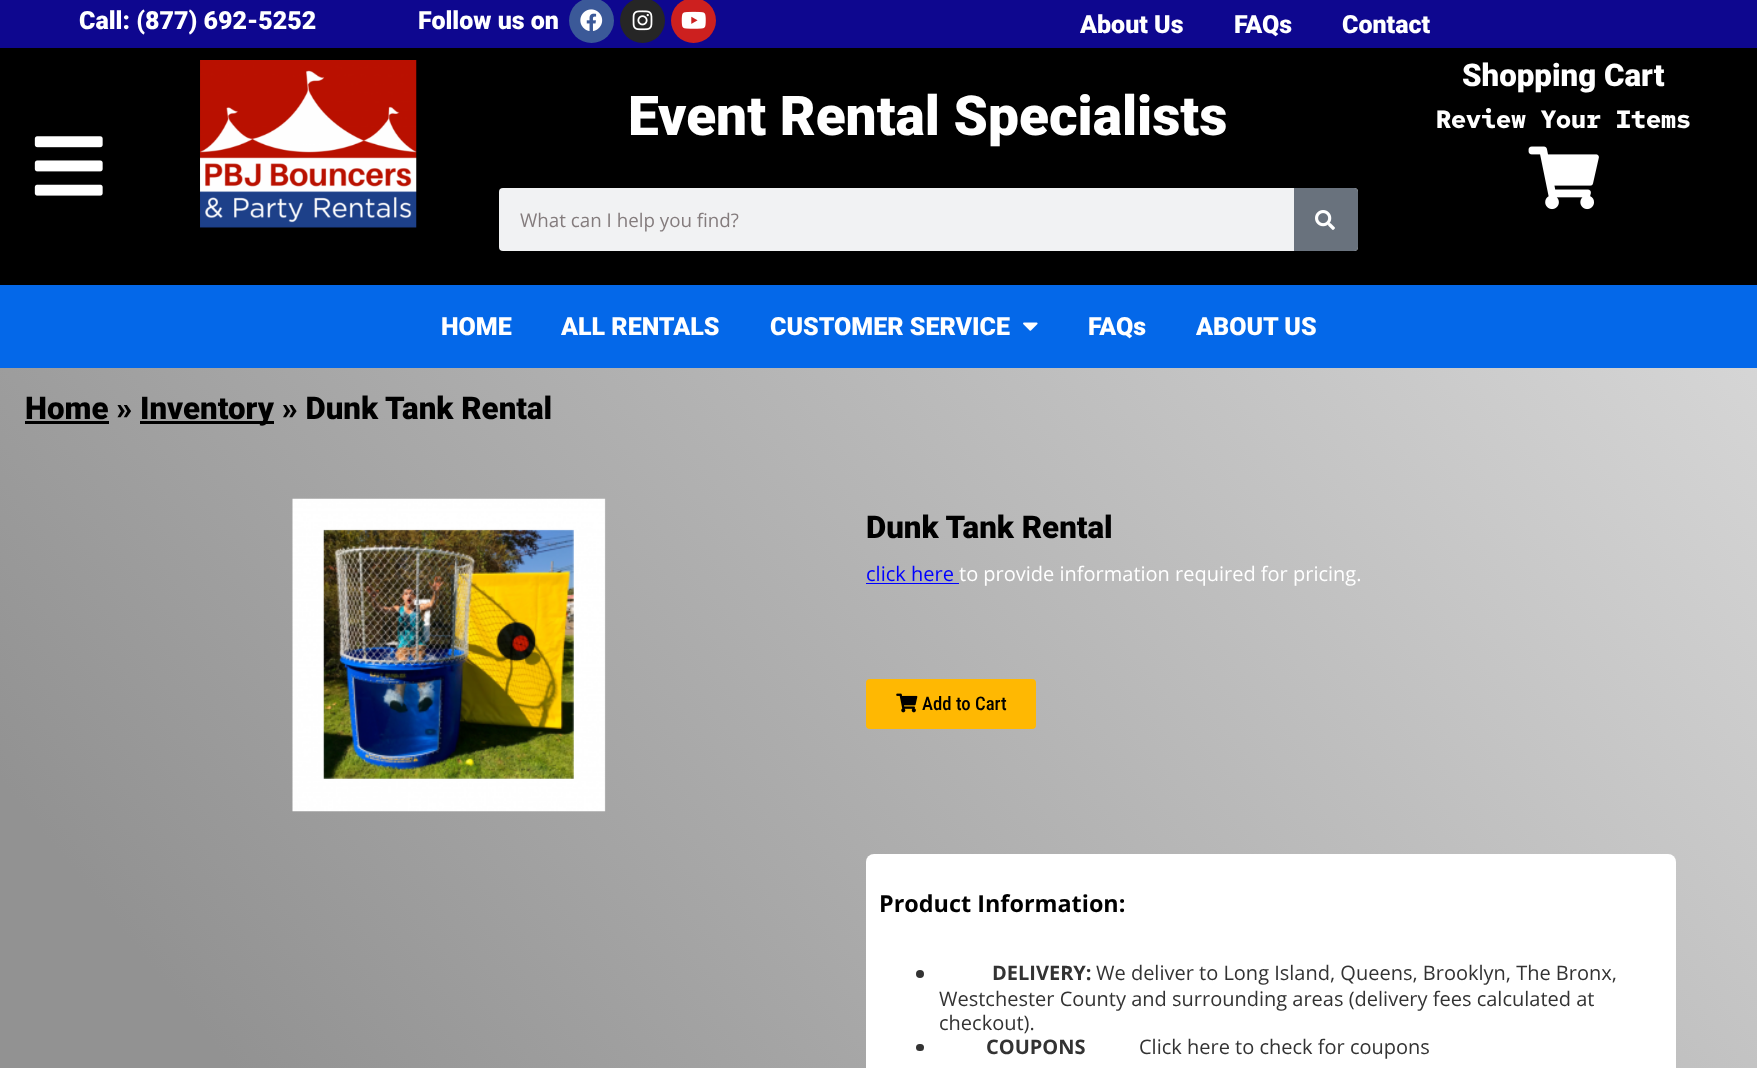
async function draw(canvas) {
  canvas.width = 1757;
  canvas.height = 1068;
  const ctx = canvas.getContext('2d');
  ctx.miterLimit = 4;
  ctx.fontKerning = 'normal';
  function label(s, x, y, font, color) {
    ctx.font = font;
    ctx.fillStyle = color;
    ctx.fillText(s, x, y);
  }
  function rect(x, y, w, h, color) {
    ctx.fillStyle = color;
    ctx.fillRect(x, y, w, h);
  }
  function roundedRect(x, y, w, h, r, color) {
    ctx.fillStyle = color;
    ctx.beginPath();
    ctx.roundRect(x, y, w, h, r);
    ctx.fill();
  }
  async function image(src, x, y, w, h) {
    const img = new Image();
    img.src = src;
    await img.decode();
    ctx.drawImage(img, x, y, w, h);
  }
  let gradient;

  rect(0, 0, 1757, 1068, '#fff');
  gradient = ctx.createLinearGradient(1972, 265, -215, 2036);
  gradient.addColorStop(0, '#dfdfdf');
  gradient.addColorStop(0.66, '#929292');
  ctx.fillStyle = gradient;
  ctx.fillRect(0, 368, 1757, 700);
  rect(0, 0, 1757, 48, '#0e078f');
  label('Call: (877) 692-5252', 79, 29, '900 25px Roboto', '#fff');
  label('Follow us on', 418, 29, '900 25px Roboto', '#fff');
  ctx.fillStyle = '#3b5998';
  ctx.beginPath();
  ctx.arc(591.5, 20.5, 22.5, 0, 2 * Math.PI);
  ctx.fill();
  await image('assets/img1.png', 580, 9, 23, 22);
  ctx.fillStyle = '#262626';
  ctx.beginPath();
  ctx.arc(642.5, 20.5, 22.5, 0, 2 * Math.PI);
  ctx.fill();
  await image('assets/img2.png', 632, 10, 21, 21);
  ctx.fillStyle = '#cd201f';
  ctx.beginPath();
  ctx.arc(693.5, 20.5, 22.5, 0, 2 * Math.PI);
  ctx.fill();
  await image('assets/img3.png', 681, 11, 25, 18);
  label('About Us', 1080, 33, '900 25px Roboto', '#fff');
  label('FAQs', 1234, 33, '900 25px Roboto', '#fff');
  label('Contact', 1342, 33, '900 25px Roboto', '#fff');
  rect(0, 48, 1757, 237, '#000');
  await image('assets/img4.png', 34, 136, 69, 60);
  await image('assets/img5.png', 200, 60, 217, 168);
  label('Event Rental Specialists', 628, 135, '900 55px Roboto', '#fff');
  roundedRect(499, 188, 859, 63, 4, '#f1f2f3');
  label('What can I help you find?', 520, 227, '18.75px Open Sans', '#847c7d');
  ctx.fillStyle = '#69727d';
  ctx.beginPath();
  ctx.roundRect(1294, 188, 64, 63, [0, 4, 4, 0]);
  ctx.fill();
  await image('assets/img6.png', 1315, 210, 20, 20);
  label('Shopping Cart', 1462, 86, '900 31.25px Roboto', '#fff');
  label('Review Your Items', 1436, 128, 'bold 25px Red Hat Mono', '#fff');
  await image('assets/img7.png', 1528, 146, 71, 64);
  rect(0, 285, 1757, 83, '#0468e9');
  label('HOME', 441, 335, '900 25px Roboto', '#fff');
  label('ALL RENTALS', 561, 335, '900 25px Roboto', '#fff');
  label('CUSTOMER SERVICE', 770, 335, '900 25px Roboto', '#fff');
  await image('assets/img8.png', 1023, 322, 15, 9);
  label('FAQs', 1088, 335, '900 25px Roboto', '#fff');
  label('ABOUT US', 1196, 335, '900 25px Roboto', '#fff');
  label('Home »', 25, 419, '900 31.25px Roboto', '#000');
  rect(25, 421, 84, 3, '#000');
  rect(140, 421, 134, 3, '#000');
  label('Inventory » Dunk Tank Rental', 140, 419, '900 31.25px Roboto', '#000');
  await image('assets/img9.png', 292, 498, 314, 314);
  label('Dunk Tank Rental', 866, 538, '900 31.25px Roboto', '#000');
  label('click here', 866, 581, '20px Open Sans', '#00f');
  rect(866, 583, 93, 1, '#00f');
  label('to provide information required for pricing.', 959, 581, '20px Open Sans', '#fff');
  roundedRect(866, 679, 170, 50, 4, '#ffb802');
  await image('assets/img10.png', 896, 693, 22, 20);
  label('Add to Cart', 922, 710, '500 18.75px Roboto Condensed', '#000');
  roundedRect(866, 854, 810, 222, 8, '#fff');
  label('Product Information:', 879, 912, 'bold 23.4px Open Sans', '#000');
  ctx.fillStyle = '#333';
  ctx.beginPath();
  ctx.arc(920, 974, 4, 0, 2 * Math.PI);
  ctx.fill();
  label('DELIVERY:', 992, 980, 'bold 20px Open Sans', '#333');
  label('We deliver to Long Island, Queens, Brooklyn, The Bronx,', 1096, 980, '20px Open Sans', '#333');
  label('Westchester County and surrounding areas (delivery fees calculated at', 939, 1006, '20px Open Sans', '#333');
  label('checkout).', 939, 1030, '20px Open Sans', '#333');
  roundedRect(916, 1044, 8, 7, 3.5, '#333');
  label('COUPONS', 986, 1054, 'bold 20px Open Sans', '#333');
  label('Click here to check for coupons', 1139, 1054, '20px Open Sans', '#333');
}

draw(document.querySelector('canvas'));
